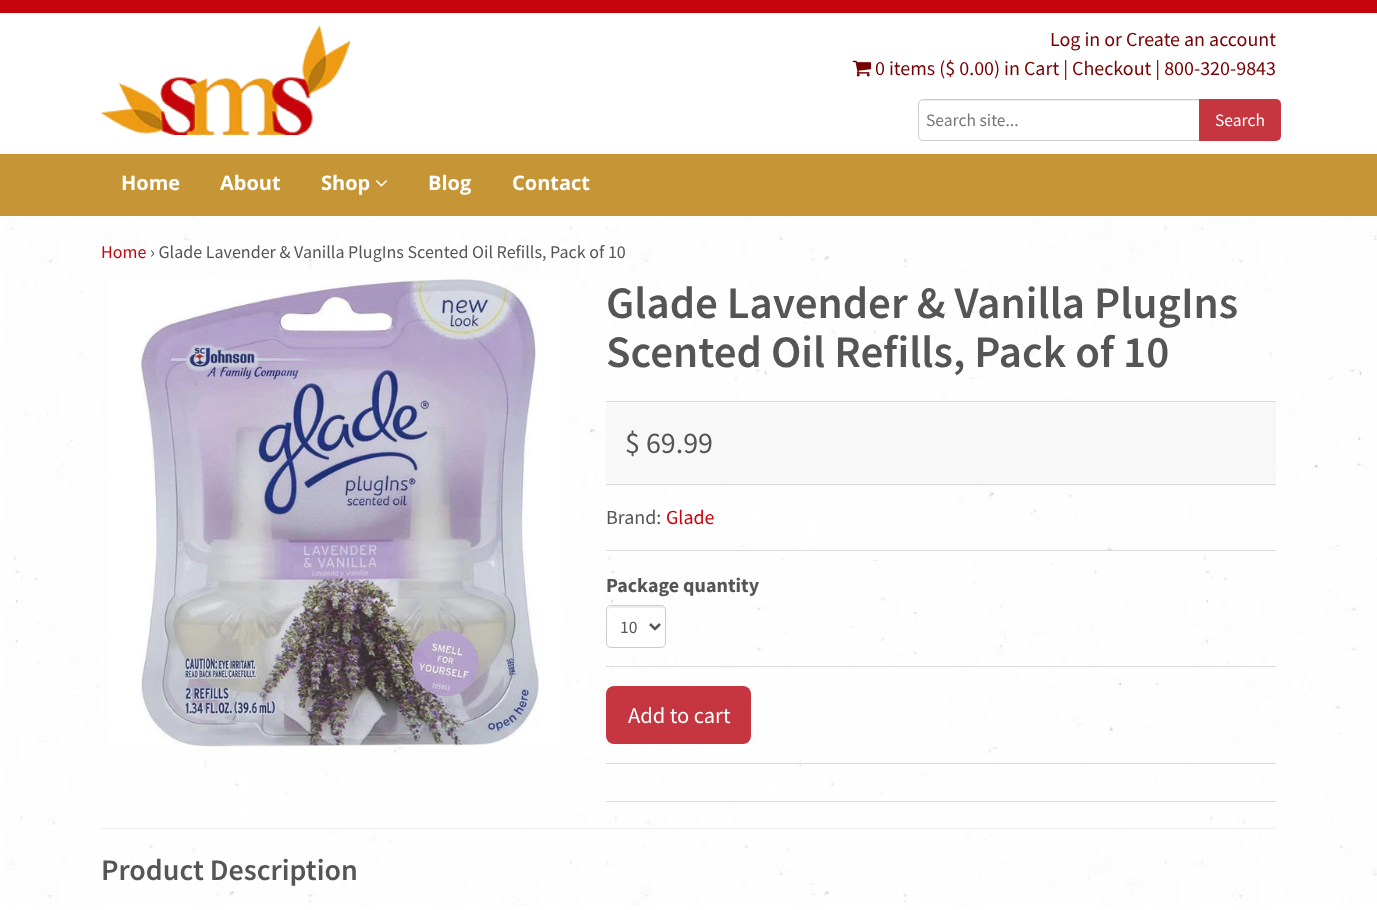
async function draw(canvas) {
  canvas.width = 1377;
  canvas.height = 910;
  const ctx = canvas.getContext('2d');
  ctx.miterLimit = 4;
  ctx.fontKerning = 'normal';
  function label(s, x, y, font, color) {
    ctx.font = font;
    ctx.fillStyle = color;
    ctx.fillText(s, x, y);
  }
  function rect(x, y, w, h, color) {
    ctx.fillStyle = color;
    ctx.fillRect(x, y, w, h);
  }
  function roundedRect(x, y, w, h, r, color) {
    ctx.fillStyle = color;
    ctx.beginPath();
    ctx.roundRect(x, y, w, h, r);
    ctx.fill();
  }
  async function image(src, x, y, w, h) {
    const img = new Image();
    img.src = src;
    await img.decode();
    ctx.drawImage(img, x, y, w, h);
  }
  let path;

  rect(0, 0, 1377, 910, '#fff');
  await image('assets/img1.png', 4, 216, 1373, 690);
  rect(0, 0, 1377, 13, '#c6040c');
  await image('assets/img2.png', 101, 25, 249, 110);
  label('Log in or Create an account', 1050, 46, '20px Source Sans Pro', '#770003');
  await image('assets/img3.png', 852, 60, 20, 17);
  label('0 items ($ 0.00) in Cart | Checkout | 800-320-9843', 875, 75, '20px Source Sans Pro', '#770003');
  ctx.fillStyle = '#ececec';
  path = new Path2D('M922 101H1254L1256 103V105C1256 102 1255 100 1252 100H922L920 102L919 105C919 103 920 101 922 101Z');
  ctx.fill(path);
  ctx.beginPath();
  ctx.roundRect(918.5, 99.5, 339, 41, 4.5);
  ctx.strokeStyle = '#ccc';
  ctx.stroke();
  label('Search site...', 926, 126, '17.5px Source Sans Pro', '#777');
  ctx.fillStyle = '#c63640';
  ctx.beginPath();
  ctx.roundRect(1199, 99, 82, 42, [0, 5, 5, 0]);
  ctx.fill();
  label('Search', 1215, 126, '17.5px Source Sans Pro', '#fff');
  rect(0, 154, 1377, 62, '#c69536');
  label('Home', 121, 190, 'bold 20px Open Sans', '#fff');
  label('About', 220, 190, 'bold 20px Open Sans', '#fff');
  label('Shop', 321, 190, 'bold 20px Open Sans', '#fff');
  await image('assets/img4.png', 375, 180, 12, 7);
  label('Blog', 428, 190, 'bold 20px Open Sans', '#fff');
  label('Contact', 512, 190, 'bold 20px Open Sans', '#fff');
  label('Home', 101, 258, '18px Source Sans Pro', '#c6040c');
  label('› Glade Lavender & Vanilla PlugIns Scented Oil Refills, Pack of 10', 150, 258, '18px Source Sans Pro', '#555');
  await image('assets/img5.png', 107, 278, 457, 469);
  label('Glade Lavender & Vanilla PlugIns', 606, 318, '600 45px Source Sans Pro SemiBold', '#555');
  label('Scented Oil Refills, Pack of 10', 606, 367, '600 45px Source Sans Pro SemiBold', '#555');
  rect(606, 402, 670, 82, '#f8f8f8');
  rect(606, 401, 670, 1, '#dbdbdb');
  rect(606, 484, 670, 1, '#dbdbdb');
  label('$ 69.99', 625, 453, '30px Source Sans Pro', '#555');
  rect(606, 550, 670, 1, '#dbdbdb');
  label('Brand:', 606, 524, '20px Source Sans Pro', '#555');
  label('Glade', 666, 524, '20px Source Sans Pro', '#c6040c');
  rect(606, 666, 670, 1, '#dbdbdb');
  label('Package quantity', 606, 592, 'bold 20px Source Sans Pro', '#555');
  roundedRect(606, 605, 60, 43, 5, '#fff');
  ctx.fillStyle = '#ececec';
  path = new Path2D('M611 608H661C663 608 665 609 665 611C665 604 658 606 653 606H620C615 606 608 604 608 611C608 609 609 608 611 608Z');
  ctx.fill(path);
  ctx.beginPath();
  ctx.roundRect(606.5, 605.5, 59, 42, 4.5);
  ctx.stroke();
  path = new Path2D('M650 624L655 629L660 624');
  ctx.strokeStyle = '#555';
  ctx.lineWidth = 2.5;
  ctx.stroke(path);
  label('10', 620, 633, '17.5px Source Sans Pro', '#555');
  rect(606, 763, 670, 1, '#dbdbdb');
  roundedRect(606, 686, 145, 58, 8, '#c63640');
  label('Add to cart', 628, 723, '22.5px Source Sans Pro', '#fff');
  rect(606, 801, 670, 1, '#dbdbdb');
  rect(101, 828, 1175, 1, '#eee');
  label('Product Description', 101, 880, '600 30px Source Sans Pro SemiBold', '#555');
}

draw(document.querySelector('canvas'));
